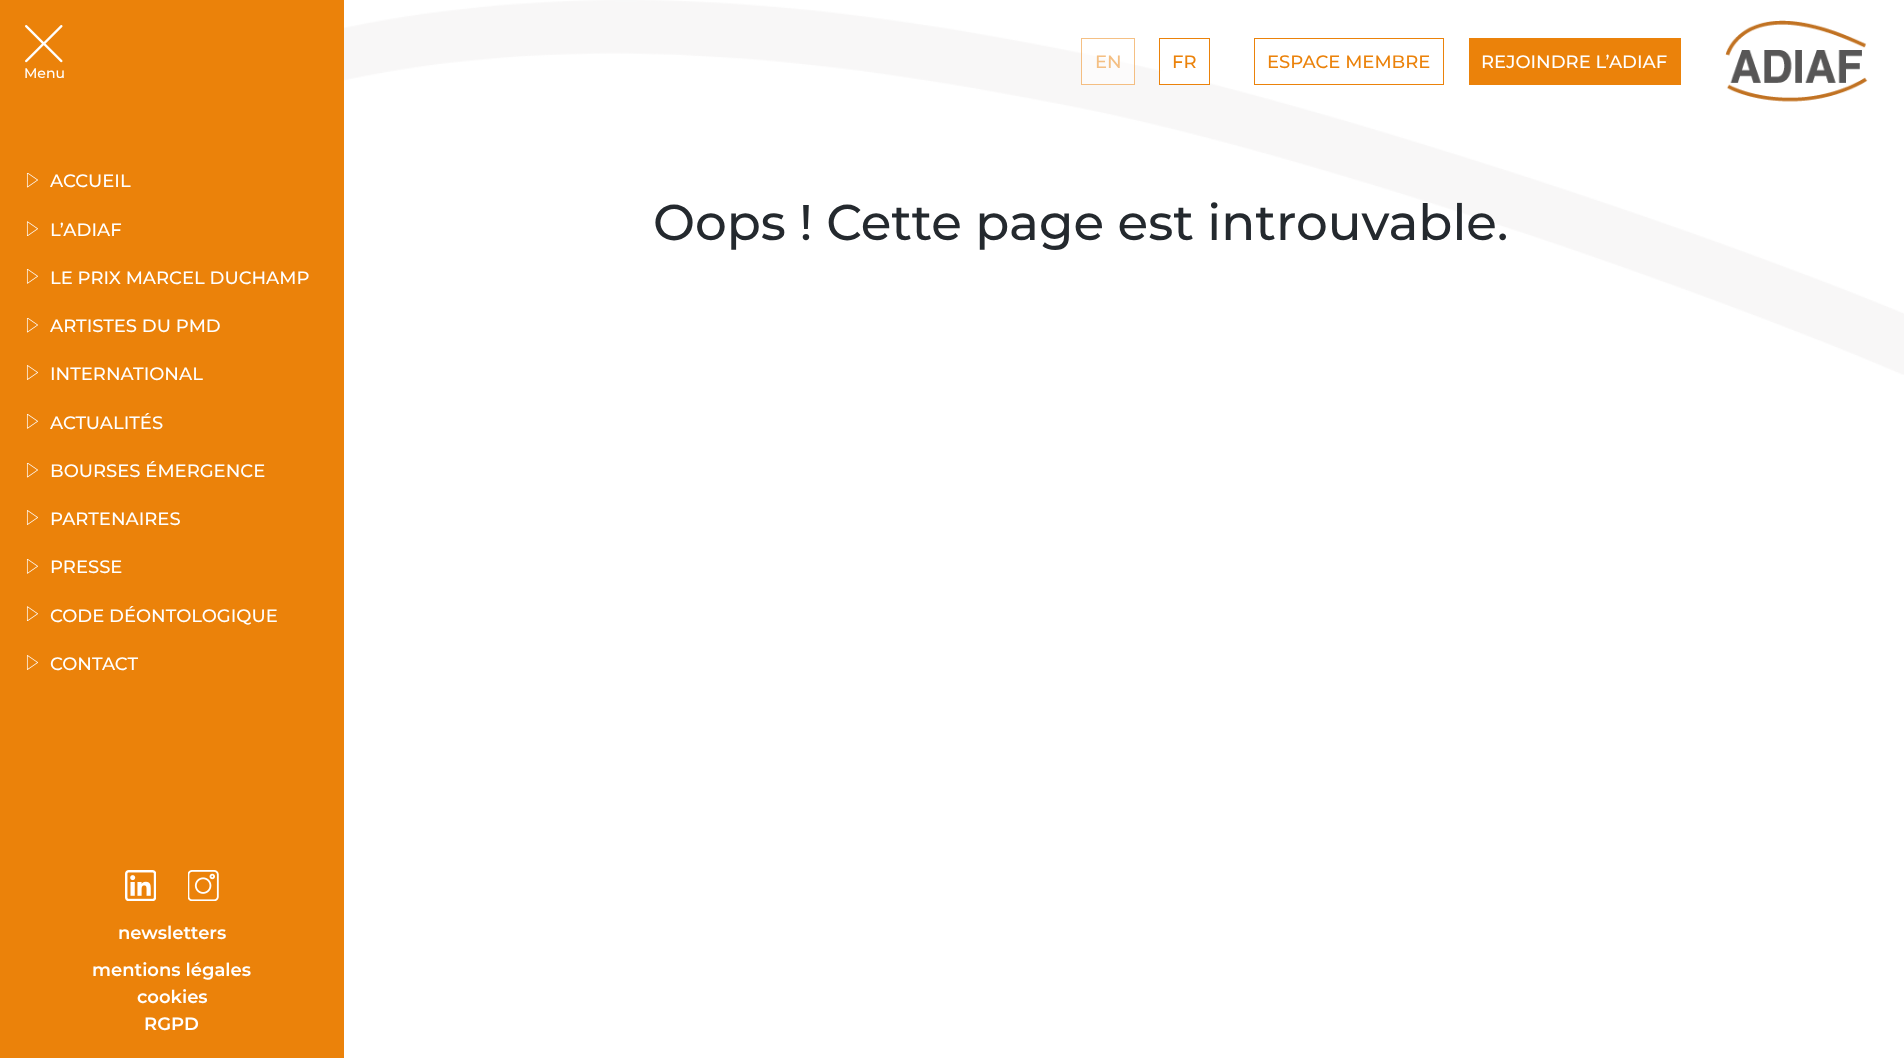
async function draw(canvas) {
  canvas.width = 1904;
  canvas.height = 1058;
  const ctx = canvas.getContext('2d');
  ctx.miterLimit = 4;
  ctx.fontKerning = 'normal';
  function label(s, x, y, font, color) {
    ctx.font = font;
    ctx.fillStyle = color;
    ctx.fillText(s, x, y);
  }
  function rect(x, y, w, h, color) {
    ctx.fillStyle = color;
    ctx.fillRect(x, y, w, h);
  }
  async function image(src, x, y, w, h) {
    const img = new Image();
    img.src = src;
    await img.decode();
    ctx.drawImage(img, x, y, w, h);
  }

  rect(0, 0, 1904, 1058, '#fff');
  await image('assets/img1.png', 344, 0, 1560, 375);
  rect(0, 0, 344, 1058, '#eb820a');
  await image('assets/img2.png', 25, 25, 38, 38);
  label('Menu', 24, 78, '500 14px Montserrat', '#fff');
  await image('assets/img3.png', 26, 173, 12, 15);
  label('ACCUEIL', 50, 187, '500 18px Montserrat', '#fff');
  await image('assets/img4.png', 26, 221, 12, 15);
  label('L’ADIAF', 50, 236, '500 18px Montserrat', '#fff');
  await image('assets/img5.png', 26, 269, 12, 15);
  label('LE PRIX MARCEL DUCHAMP', 50, 284, '500 18px Montserrat', '#fff');
  await image('assets/img3.png', 26, 318, 12, 15);
  label('ARTISTES DU PMD', 50, 332, '500 18px Montserrat', '#fff');
  await image('assets/img6.png', 26, 365, 12, 15);
  label('INTERNATIONAL', 50, 380, '500 18px Montserrat', '#fff');
  await image('assets/img5.png', 26, 414, 12, 15);
  label('ACTUALITÉS', 50, 429, '500 18px Montserrat', '#fff');
  await image('assets/img3.png', 26, 463, 12, 15);
  label('BOURSES ÉMERGENCE', 50, 477, '500 18px Montserrat', '#fff');
  await image('assets/img6.png', 26, 510, 12, 15);
  label('PARTENAIRES', 50, 525, '500 18px Montserrat', '#fff');
  await image('assets/img5.png', 26, 559, 12, 15);
  label('PRESSE', 50, 573, '500 18px Montserrat', '#fff');
  await image('assets/img4.png', 26, 606, 12, 15);
  label('CODE DÉONTOLOGIQUE', 50, 622, '500 18px Montserrat', '#fff');
  await image('assets/img6.png', 26, 655, 12, 15);
  label('CONTACT', 50, 670, '500 18px Montserrat', '#fff');
  await image('assets/img7.png', 125, 870, 31, 31);
  await image('assets/img8.png', 188, 870, 31, 31);
  label('newsletters', 118, 939, '600 18px Montserrat', '#fff');
  label('mentions légales', 92, 976, '600 18px Montserrat', '#fff');
  label('cookies', 137, 1003, '600 18px Montserrat', '#fff');
  label('RGPD', 144, 1030, '600 18px Montserrat', '#fff');
  rect(1081, 54, 54, 31, '#ffffff80');
  ctx.strokeStyle = '#eb820a80';
  ctx.strokeRect(1081.5, 38.5, 53, 46);
  label('EN', 1095, 68, '500 18px Montserrat', '#f4bf83');
  rect(1160, 71, 49, 13, '#fff');
  ctx.strokeStyle = '#eb820a';
  ctx.strokeRect(1159.5, 38.5, 50, 46);
  label('FR', 1172, 68, '500 18px Montserrat', '#eb820a');
  ctx.strokeRect(1254.5, 38.5, 189, 46);
  label('ESPACE MEMBRE', 1267, 68, '500 18px Montserrat', '#eb820a');
  rect(1469, 38, 212, 47, '#eb820a');
  label('REJOINDRE L’ADIAF', 1481, 68, '500 18px Montserrat', '#fff');
  await image('assets/img9.png', 1725, 20, 143, 82);
  label('Oops ! Cette page est introuvable.', 653, 240, '500 50px Montserrat', '#24292e');
}

draw(document.querySelector('canvas'));
